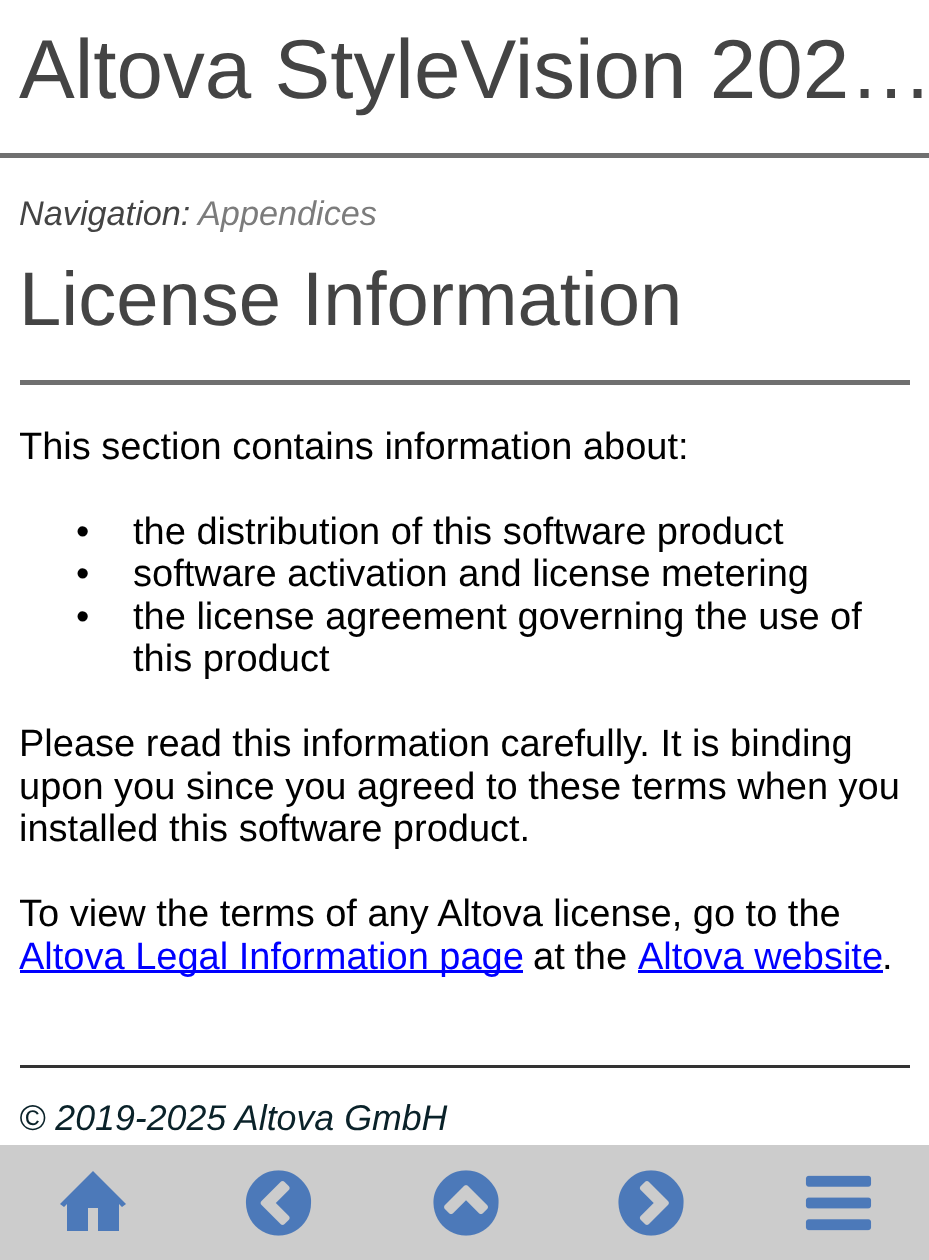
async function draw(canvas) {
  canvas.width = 929;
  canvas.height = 1260;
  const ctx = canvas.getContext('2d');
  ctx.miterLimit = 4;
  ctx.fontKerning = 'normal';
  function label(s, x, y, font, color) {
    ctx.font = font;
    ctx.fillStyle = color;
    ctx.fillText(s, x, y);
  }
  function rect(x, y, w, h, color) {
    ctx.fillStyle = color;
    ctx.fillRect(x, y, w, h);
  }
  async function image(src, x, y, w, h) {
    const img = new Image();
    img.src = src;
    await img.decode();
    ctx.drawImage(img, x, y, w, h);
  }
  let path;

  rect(0, 0, 929, 1260, '#fff');
  label('Altova StyleVision 202…', 19, 98, '83.6px Liberation Sans', '#444');
  rect(0, 153, 929, 5, '#707070');
  label('Navigation:', 19, 225, 'italic 34.25px Liberation Sans', '#444');
  label('Appendices', 198, 225, 'italic 34.25px Liberation Sans', '#7c7c7c');
  label('License Information', 19, 325, '76px Liberation Sans', '#444');
  rect(20, 380, 890, 5, '#707070');
  ctx.save();
  ctx.beginPath();
  ctx.rect(20, 385, 890, 760);
  ctx.clip();
  label('This section contains information about:', 19, 459, '38px Liberation Sans', '#000');
  ctx.restore();
  label('•', 76, 544, '38px Liberation Sans', '#000');
  label('the distribution of this software product', 133, 544, '38px Liberation Sans', '#000');
  label('•', 76, 586, '38px Liberation Sans', '#000');
  label('software activation and license metering', 133, 586, '38px Liberation Sans', '#000');
  label('•', 76, 629, '38px Liberation Sans', '#000');
  label('the license agreement governing the use of', 133, 629, '38px Liberation Sans', '#000');
  label('this product', 133, 671, '38px Liberation Sans', '#000');
  label('Please read this information carefully. It is binding', 19, 756, '38px Liberation Sans', '#000');
  label('upon you since you agreed to these terms when you', 19, 799, '38px Liberation Sans', '#000');
  label('installed this software product.', 19, 841, '38px Liberation Sans', '#000');
  ctx.save();
  ctx.beginPath();
  ctx.rect(20, 385, 890, 760);
  ctx.clip();
  label('To view the terms of any Altova license, go to the', 19, 926, '38px Liberation Sans', '#000');
  ctx.restore();
  rect(20, 970, 503, 3, '#00f');
  label('Altova Legal Information page', 19, 969, '38px Liberation Sans', '#00f');
  ctx.wordSpacing = '-1px';
  label('at the', 533, 969, '38px Liberation Sans', '#000');
  ctx.wordSpacing = '0px';
  label('Altova website', 638, 969, '38px Liberation Sans', '#00f');
  rect(638, 970, 245, 3, '#00f');
  label('.', 882, 969, '38px Liberation Sans', '#000');
  rect(20, 1065, 890, 3, '#333');
  label('© 2019-2025 Altova GmbH', 19, 1130, 'italic 35.75px Liberation Sans', '#0a2229');
  rect(0, 1145, 929, 115, '#ccc');
  ctx.fillStyle = '#4c79b9';
  path = new Path2D('M93 1171L60 1204L64 1207L67 1204V1231H88V1208H98V1231H119V1204L122 1207L126 1204L95 1173Z');
  ctx.fill(path);
  await image('assets/img1.png', 245, 1170, 67, 66);
  await image('assets/img2.png', 433, 1170, 66, 66);
  await image('assets/img3.png', 618, 1170, 66, 66);
  await image('assets/img4.png', 805, 1175, 67, 56);
}

draw(document.querySelector('canvas'));
